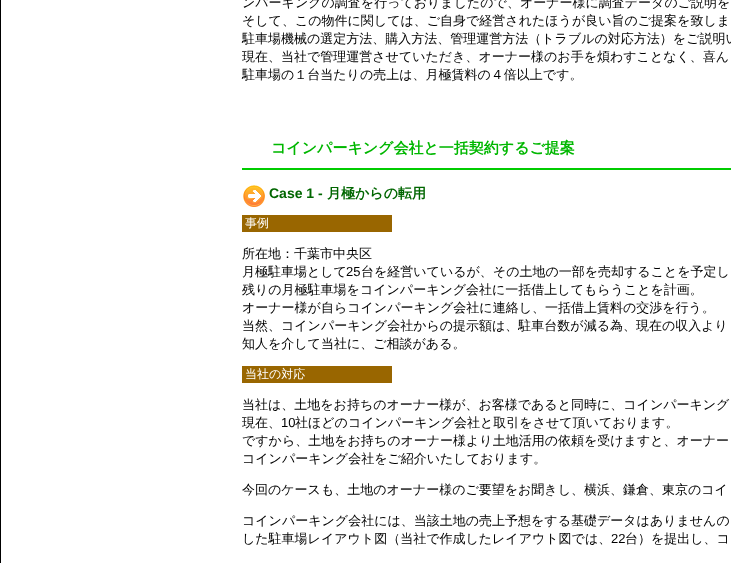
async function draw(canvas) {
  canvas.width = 731;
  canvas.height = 563;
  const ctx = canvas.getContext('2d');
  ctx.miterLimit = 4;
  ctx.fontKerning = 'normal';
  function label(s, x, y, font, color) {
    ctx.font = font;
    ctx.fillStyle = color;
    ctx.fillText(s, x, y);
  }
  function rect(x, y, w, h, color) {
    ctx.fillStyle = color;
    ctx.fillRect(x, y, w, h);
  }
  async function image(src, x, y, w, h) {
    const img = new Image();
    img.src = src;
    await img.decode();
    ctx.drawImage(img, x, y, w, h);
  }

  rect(0, 0, 731, 563, '#fff');
  ctx.strokeStyle = '#000';
  ctx.strokeRect(0.5, -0.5, 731, 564);
  label('ンパーキングの調査を行っておりましたので、オーナー様に調査データのご説明を', 242, 7, '500 13px WenQuanYi Zen Hei', '#000');
  label('そして、この物件に関しては、ご自身で経営されたほうが良い旨のご提案を致しま', 242, 25, '500 13px WenQuanYi Zen Hei', '#000');
  label('駐車場機械の選定方法、購入方法、管理運営方法（トラブルの対応方法）をご説明い', 242, 43, '500 13px WenQuanYi Zen Hei', '#000');
  label('現在、当社で管理運営させていただき、オーナー様のお手を煩わすことなく、喜ん', 242, 61, '500 13px WenQuanYi Zen Hei', '#000');
  label('駐車場の１台当たりの売上は、月極賃料の４倍以上です。', 242, 79, '500 13px WenQuanYi Zen Hei', '#000');
  rect(242, 168, 489, 2, '#0c0');
  label('コインパーキング会社と一括契約するご提案', 271, 153, 'bold 15px WenQuanYi Zen Hei', '#00b700');
  await image('assets/img1.png', 243, 185, 22, 22);
  label('Case 1 -', 269, 198, 'bold 14px Liberation Sans', '#060');
  label('月極からの転用', 327, 198, 'bold 14px WenQuanYi Zen Hei', '#060');
  rect(242, 215, 150, 17, '#960');
  label('事例', 245, 227, '500 12px WenQuanYi Zen Hei', '#fff');
  label('所在地：千葉市中央区', 242, 258, '500 13px WenQuanYi Zen Hei', '#000');
  label('月極駐車場として', 242, 276, '500 13px WenQuanYi Zen Hei', '#000');
  label('25', 346, 276, '13px Liberation Sans', '#000');
  label('台を経営いているが、その土地の一部を売却することを予定し', 361, 276, '500 13px WenQuanYi Zen Hei', '#000');
  label('残りの月極駐車場をコインパーキング会社に一括借上してもらうことを計画。', 242, 294, '500 13px WenQuanYi Zen Hei', '#000');
  label('オーナー様が自らコインパーキング会社に連絡し、一括借上賃料の交渉を行う。', 242, 312, '500 13px WenQuanYi Zen Hei', '#000');
  label('当然、コインパーキング会社からの提示額は、駐車台数が減る為、現在の収入より', 242, 330, '500 13px WenQuanYi Zen Hei', '#000');
  label('知人を介して当社に、ご相談がある。', 242, 348, '500 13px WenQuanYi Zen Hei', '#000');
  rect(242, 366, 150, 17, '#960');
  label('当社の対応', 245, 378, '500 12px WenQuanYi Zen Hei', '#fff');
  label('当社は、土地をお持ちのオーナー様が、お客様であると同時に、コインパーキング', 242, 409, '500 13px WenQuanYi Zen Hei', '#000');
  label('現在、', 242, 427, '500 13px WenQuanYi Zen Hei', '#000');
  label('10', 281, 427, '13px Liberation Sans', '#000');
  label('社ほどのコインパーキング会社と取引をさせて頂いております。', 295, 427, '500 13px WenQuanYi Zen Hei', '#000');
  label('ですから、土地をお持ちのオーナー様より土地活用の依頼を受けますと、オーナー', 242, 445, '500 13px WenQuanYi Zen Hei', '#000');
  label('コインパーキング会社をご紹介いたしております。', 242, 463, '500 13px WenQuanYi Zen Hei', '#000');
  label('今回のケースも、土地のオーナー様のご要望をお聞きし、横浜、鎌倉、東京のコイ', 242, 494, '500 13px WenQuanYi Zen Hei', '#000');
  label('コインパーキング会社には、当該土地の売上予想をする基礎データはありませんの', 242, 525, '500 13px WenQuanYi Zen Hei', '#000');
  label('した駐車場レイアウト図（当社で作成したレイアウト図では、', 242, 543, '500 13px WenQuanYi Zen Hei', '#000');
  label('22', 611, 543, '13px Liberation Sans', '#000');
  label('台）を提出し、コ', 625, 543, '500 13px WenQuanYi Zen Hei', '#000');
}

draw(document.querySelector('canvas'));
